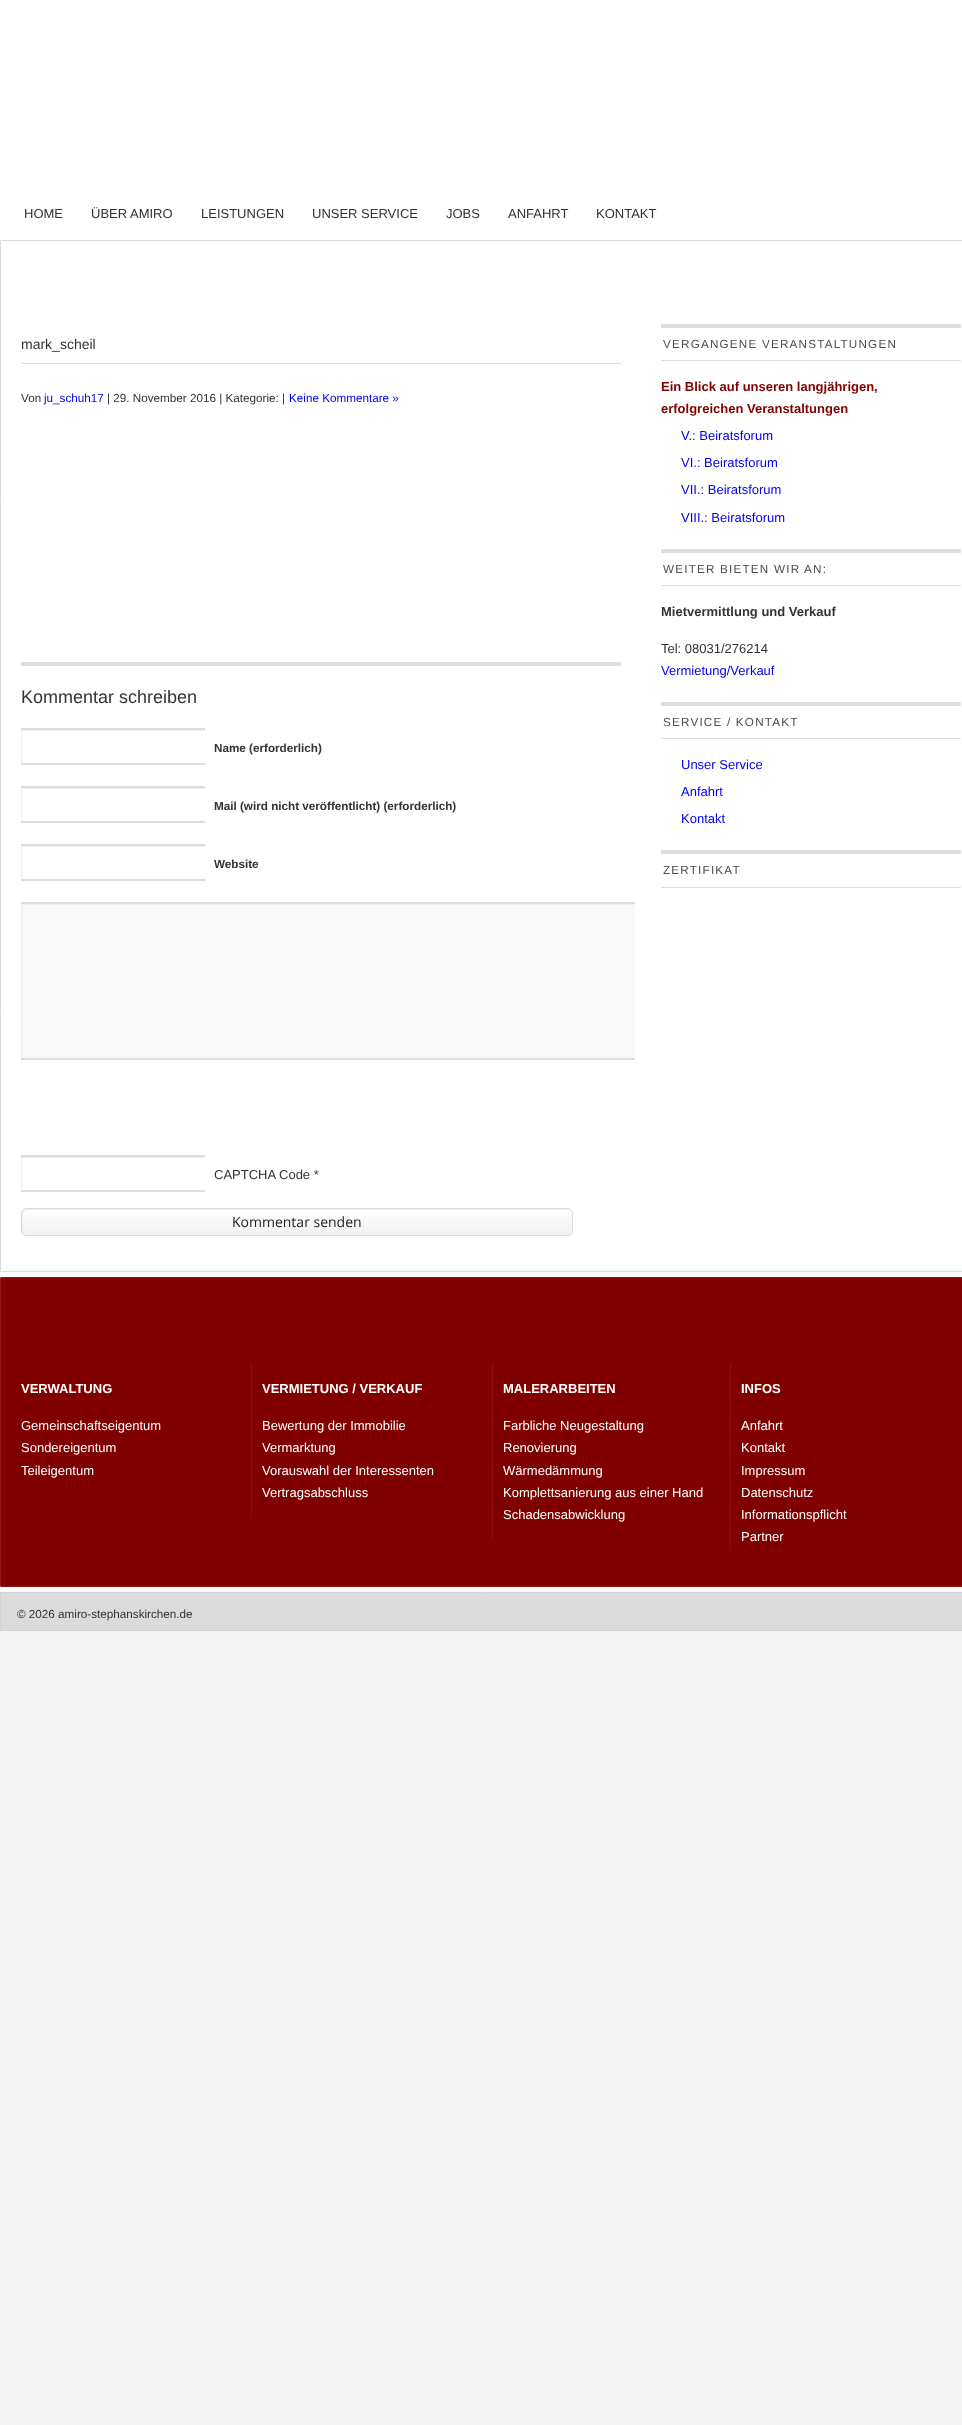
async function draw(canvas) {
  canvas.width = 962;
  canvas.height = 2425;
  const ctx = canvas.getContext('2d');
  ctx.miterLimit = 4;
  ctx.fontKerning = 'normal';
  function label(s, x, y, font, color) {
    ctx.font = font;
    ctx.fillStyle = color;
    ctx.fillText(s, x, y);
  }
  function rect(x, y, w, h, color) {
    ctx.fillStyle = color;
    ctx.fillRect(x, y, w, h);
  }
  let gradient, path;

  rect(0, 0, 962, 2425, '#f4f4f4');
  rect(0, 0, 962, 1592, '#fff');
  label('HOME', 24, 218, '13px Liberation Sans', '#333');
  label('ÜBER AMIRO', 91, 218, '13px Liberation Sans', '#333');
  label('LEISTUNGEN', 201, 218, '13px Liberation Sans', '#333');
  label('UNSER SERVICE', 312, 218, '13px Liberation Sans', '#333');
  label('JOBS', 446, 218, '13px Liberation Sans', '#333');
  label('ANFAHRT', 508, 218, '13px Liberation Sans', '#333');
  label('KONTAKT', 596, 218, '13px Liberation Sans', '#333');
  ctx.beginPath();
  ctx.roundRect(0.5, 240.5, 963, 1031, 0.5);
  ctx.strokeStyle = '#d9d9d9';
  ctx.stroke();
  rect(21, 363, 600, 1, '#ddd');
  label('mark_scheil', 21, 349, '14px Liberation Sans', '#333');
  label('Von', 21, 402, '11.7px Liberation Sans', '#333');
  label('ju_schuh17', 44, 402, '11.7px Liberation Sans', '#00e');
  label('| 29. November 2016 | Kategorie: |', 107, 402, '11.7px Liberation Sans', '#333');
  label('Keine Kommentare »', 289, 402, '11.7px Liberation Sans', '#00e');
  rect(21, 662, 600, 4, '#ddd');
  label('Kommentar schreiben', 21, 703, '18px Liberation Sans', '#333');
  ctx.save();
  ctx.beginPath();
  ctx.rect(21, 730, 184, 33);
  ctx.clip();
  ctx.fillStyle = '#eee';
  path = new Path2D('M-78 631H304V862H-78ZM22 731H206V764H22Z');
  ctx.fill(path, 'evenodd');
  ctx.restore();
  rect(21, 728, 184, 2, '#ddd');
  rect(21, 763, 184, 2, '#ddd');
  label('Name (erforderlich)', 214, 752, 'bold 11.7px Liberation Sans', '#333');
  ctx.save();
  ctx.beginPath();
  ctx.rect(21, 788, 184, 33);
  ctx.clip();
  ctx.fillStyle = '#eee';
  path = new Path2D('M-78 689H304V920H-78ZM22 789H206V822H22Z');
  ctx.fill(path, 'evenodd');
  ctx.restore();
  rect(21, 786, 184, 2, '#ddd');
  rect(21, 821, 184, 2, '#ddd');
  label('Mail (wird nicht veröffentlicht) (erforderlich)', 214, 810, 'bold 11.7px Liberation Sans', '#333');
  ctx.save();
  ctx.beginPath();
  ctx.rect(21, 846, 184, 33);
  ctx.clip();
  ctx.fillStyle = '#eee';
  path = new Path2D('M-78 747H304V978H-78ZM22 847H206V880H22Z');
  ctx.fill(path, 'evenodd');
  ctx.restore();
  rect(21, 844, 184, 2, '#ddd');
  rect(21, 879, 184, 2, '#ddd');
  label('Website', 214, 868, 'bold 11.7px Liberation Sans', '#333');
  rect(22, 905, 613, 153, '#f8f8f8');
  ctx.save();
  ctx.beginPath();
  ctx.rect(21, 904, 614, 154);
  ctx.clip();
  ctx.fillStyle = '#eee';
  path = new Path2D('M-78 805H734V1157H-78ZM22 905H636V1059H22Z');
  ctx.fill(path, 'evenodd');
  ctx.restore();
  rect(21, 902, 614, 2, '#ddd');
  rect(21, 1058, 614, 2, '#ddd');
  ctx.save();
  ctx.beginPath();
  ctx.rect(21, 1157, 184, 33);
  ctx.clip();
  ctx.fillStyle = '#eee';
  path = new Path2D('M-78 1058H304V1289H-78ZM22 1158H206V1191H22Z');
  ctx.fill(path, 'evenodd');
  ctx.restore();
  rect(21, 1155, 184, 2, '#ddd');
  rect(21, 1190, 184, 2, '#ddd');
  label('CAPTCHA Code *', 214, 1179, '13px Liberation Sans', '#333');
  ctx.save();
  ctx.beginPath();
  ctx.roundRect(21, 1208, 552, 28, 5);
  ctx.clip();
  gradient = ctx.createLinearGradient(297, 1209, 297, 1235);
  gradient.addColorStop(0, '#fff');
  gradient.addColorStop(1, '#f1f1f1');
  ctx.fillStyle = gradient;
  ctx.fillRect(21, 1209, 552, 26);
  ctx.restore();
  ctx.fillStyle = '#eee';
  path = new Path2D('M27 1210H569L571 1211C571 1210 569 1209 568 1209H26C24 1209 22 1211 22 1213V1231C22 1232 23 1234 24 1234C22 1232 23 1226 23 1223C23 1220 21 1210 27 1210Z');
  ctx.fill(path);
  ctx.beginPath();
  ctx.roundRect(21.5, 1208.5, 551, 27, 4.5);
  ctx.strokeStyle = '#ddd';
  ctx.stroke();
  label('Kommentar senden', 232, 1227, '14px Open Sans', '#222');
  rect(661, 324, 300, 4, '#ddd');
  rect(661, 360, 300, 1, '#ddd');
  ctx.letterSpacing = '1.2px';
  label('VERGANGENE VERANSTALTUNGEN', 663, 348, '11.7px Liberation Sans', '#4d4d4d');
  ctx.letterSpacing = '0px';
  label('Ein Blick auf unseren langjährigen,', 661, 391, 'bold 13px Liberation Sans', '#800000');
  label('erfolgreichen Veranstaltungen', 661, 413, 'bold 13px Liberation Sans', '#800000');
  label('V.: Beiratsforum', 681, 440, '13px Liberation Sans', '#00e');
  label('VI.: Beiratsforum', 681, 467, '13px Liberation Sans', '#00e');
  label('VII.: Beiratsforum', 681, 494, '13px Liberation Sans', '#00e');
  label('VIII.: Beiratsforum', 681, 522, '13px Liberation Sans', '#00e');
  rect(661, 549, 300, 4, '#ddd');
  rect(661, 585, 300, 1, '#ddd');
  ctx.letterSpacing = '1.2px';
  label('WEITER BIETEN WIR AN:', 663, 573, '11.7px Liberation Sans', '#4d4d4d');
  ctx.letterSpacing = '0px';
  label('Mietvermittlung und Verkauf', 661, 616, 'bold 13px Liberation Sans', '#333');
  label('Tel: 08031/276214', 661, 653, '13px Liberation Sans', '#333');
  label('Vermietung/Verkauf', 661, 675, '13px Liberation Sans', '#00e');
  rect(661, 702, 300, 4, '#ddd');
  rect(661, 738, 300, 1, '#ddd');
  ctx.letterSpacing = '1.2px';
  label('SERVICE / KONTAKT', 663, 726, '11.7px Liberation Sans', '#4d4d4d');
  ctx.letterSpacing = '0px';
  label('Unser Service', 681, 769, '13px Liberation Sans', '#00e');
  label('Anfahrt', 681, 796, '13px Liberation Sans', '#00e');
  label('Kontakt', 681, 823, '13px Liberation Sans', '#00e');
  rect(661, 850, 300, 4, '#ddd');
  rect(661, 887, 300, 1, '#ddd');
  ctx.letterSpacing = '1.2px';
  label('ZERTIFIKAT', 663, 874, '11.7px Liberation Sans', '#4d4d4d');
  ctx.fillStyle = '#800000';
  ctx.beginPath();
  ctx.roundRect(0.5, 1277.5, 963, 309, 0.5);
  ctx.fill();
  ctx.strokeStyle = '#991414';
  ctx.stroke();
  ctx.letterSpacing = '0px';
  label('VERWALTUNG', 21, 1393, 'bold 13px Liberation Sans', '#fff');
  label('Gemeinschaftseigentum', 21, 1430, '13px Liberation Sans', '#fff');
  label('Sondereigentum', 21, 1452, '13px Liberation Sans', '#fff');
  label('Teileigentum', 21, 1475, '13px Liberation Sans', '#fff');
  path = new Path2D('M251.5 1363V1519');
  ctx.strokeStyle = '#9d1d1d';
  ctx.setLineDash([1, 1]);
  ctx.stroke(path);
  label('VERMIETUNG / VERKAUF', 262, 1393, 'bold 13px Liberation Sans', '#fff');
  label('Bewertung der Immobilie', 262, 1430, '13px Liberation Sans', '#fff');
  label('Vermarktung', 262, 1452, '13px Liberation Sans', '#fff');
  label('Vorauswahl der Interessenten', 262, 1475, '13px Liberation Sans', '#fff');
  label('Vertragsabschluss', 262, 1497, '13px Liberation Sans', '#fff');
  path = new Path2D('M492.5 1363V1541');
  ctx.stroke(path);
  label('MALERARBEITEN', 503, 1393, 'bold 13px Liberation Sans', '#fff');
  label('Farbliche Neugestaltung', 503, 1430, '13px Liberation Sans', '#fff');
  label('Renovierung', 503, 1452, '13px Liberation Sans', '#fff');
  label('Wärmedämmung', 503, 1475, '13px Liberation Sans', '#fff');
  label('Komplettsanierung aus einer Hand', 503, 1497, '13px Liberation Sans', '#fff');
  label('Schadensabwicklung', 503, 1519, '13px Liberation Sans', '#fff');
  path = new Path2D('M730.5 1363V1548');
  ctx.stroke(path);
  label('INFOS', 741, 1393, 'bold 13px Liberation Sans', '#fff');
  label('Anfahrt', 741, 1430, '13px Liberation Sans', '#fff');
  label('Kontakt', 741, 1452, '13px Liberation Sans', '#fff');
  label('Impressum', 741, 1475, '13px Liberation Sans', '#fff');
  label('Datenschutz', 741, 1497, '13px Liberation Sans', '#fff');
  label('Informationspflicht', 741, 1519, '13px Liberation Sans', '#fff');
  label('Partner', 741, 1541, '13px Liberation Sans', '#fff');
  ctx.fillStyle = '#dbdbdb';
  ctx.beginPath();
  ctx.rect(0.5, 1592.5, 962, 38);
  ctx.fill();
  ctx.strokeStyle = '#d3d3d3';
  ctx.setLineDash([]);
  ctx.stroke();
  label('© 2026 amiro-stephanskirchen.de', 17, 1618, '11.7px Liberation Sans', '#333');
}

draw(document.querySelector('canvas'));
